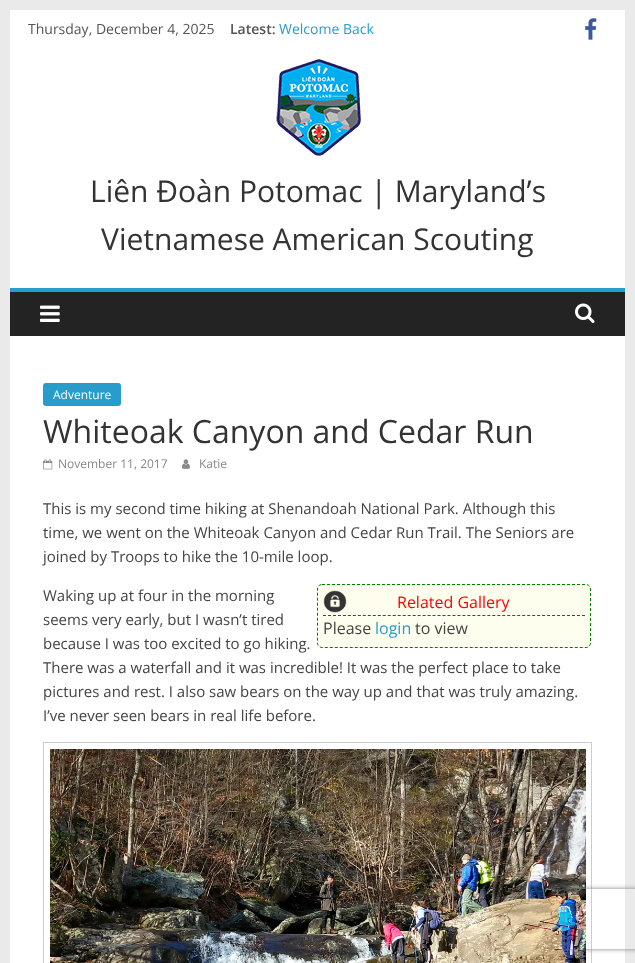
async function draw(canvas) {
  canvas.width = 635;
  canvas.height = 963;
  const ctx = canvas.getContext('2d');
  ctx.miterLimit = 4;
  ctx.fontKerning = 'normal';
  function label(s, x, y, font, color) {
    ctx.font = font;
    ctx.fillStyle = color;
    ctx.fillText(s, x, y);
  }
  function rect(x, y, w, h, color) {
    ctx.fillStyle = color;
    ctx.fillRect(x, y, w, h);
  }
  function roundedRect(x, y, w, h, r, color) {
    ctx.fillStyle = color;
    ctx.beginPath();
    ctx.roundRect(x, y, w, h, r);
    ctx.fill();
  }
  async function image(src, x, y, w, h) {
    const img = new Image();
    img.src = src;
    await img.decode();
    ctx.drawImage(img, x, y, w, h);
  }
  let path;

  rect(0, 0, 635, 963, '#eaeaea');
  rect(10, 10, 615, 278, '#fff');
  label('Thursday, December 4, 2025', 28, 34, '14px Open Sans', '#555');
  label('Latest:', 230, 34, '600 14px Open Sans', '#555');
  label('Welcome Back', 279, 34, '14px Open Sans', '#289dcc');
  await image('assets/img1.png', 585, 18, 12, 22);
  await image('assets/img2.png', 276, 59, 85, 97);
  label('Liên Đoàn Potomac | Maryland’s', 90, 202, '30px Open Sans', '#333');
  label('Vietnamese American Scouting', 101, 250, '30px Open Sans', '#333');
  rect(10, 292, 615, 44, '#232323');
  rect(10, 288, 615, 4, '#289dcc');
  await image('assets/img3.png', 40, 305, 20, 17);
  await image('assets/img4.png', 575, 303, 20, 20);
  rect(10, 336, 615, 627, '#fff');
  roundedRect(43, 383, 78, 23, 3, '#289dcc');
  label('Adventure', 53, 399, '12px Open Sans', '#fff');
  label('Whiteoak Canyon and Cedar Run', 43, 443, '32px Open Sans', '#333');
  await image('assets/img5.png', 43, 459, 10, 11);
  label('November 11, 2017', 58, 468, '12px Open Sans', '#888');
  await image('assets/img6.png', 182, 459, 8, 10);
  label('Katie', 199, 468, '12px Open Sans', '#888');
  label('This is my second time hiking at Shenandoah National Park. Although this', 43, 514, '15px Open Sans', '#444');
  label('time, we went on the Whiteoak Canyon and Cedar Run Trail. The Seniors are', 43, 538, '15px Open Sans', '#444');
  label('joined by Troops to hike the 10-mile loop.', 43, 562, '15px Open Sans', '#444');
  label('Waking up at four in the morning', 43, 601, '15px Open Sans', '#444');
  label('seems very early, but I wasn’t tired', 43, 625, '15px Open Sans', '#444');
  label('because I was too excited to go hiking.', 43, 649, '15px Open Sans', '#444');
  label('There was a waterfall and it was incredible! It was the perfect place to take', 43, 673, '15px Open Sans', '#444');
  label('pictures and rest. I also saw bears on the way up and that was truly amazing.', 43, 697, '15px Open Sans', '#444');
  label('I’ve never seen bears in real life before.', 43, 721, '15px Open Sans', '#444');
  roundedRect(317, 584, 274, 64, 5, '#fefeee');
  path = new Path2D('M322 584.5H586C588.5 584.5 590.5 586.5 590.5 589V643C590.5 645.5 588.5 647.5 586 647.5H322C319.5 647.5 317.5 645.5 317.5 643V589C317.5 586.5 319.5 584.5 322 584.5Z');
  ctx.strokeStyle = '#008000';
  ctx.setLineDash([3, 2]);
  ctx.stroke(path);
  await image('assets/img7.png', 323, 590, 24, 23);
  label('Related Gallery', 397, 608, '16px Open Sans', '#f00');
  path = new Path2D('M323 615.5H585');
  ctx.strokeStyle = '#444';
  ctx.setLineDash([3, 1.98]);
  ctx.stroke(path);
  label('Please', 323, 634, '16px Open Sans', '#444');
  label('login', 375, 634, '16px Open Sans', '#289dcc');
  label('to view', 415, 634, '16px Open Sans', '#444');
  ctx.strokeStyle = '#ccc';
  ctx.setLineDash([]);
  ctx.strokeRect(43.5, 742.5, 548, 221);
  await image('assets/img8.png', 50, 749, 536, 214);
  ctx.save();
  path = new Path2D('M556 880H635V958H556ZM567 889H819C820 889 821 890 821 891V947C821 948 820 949 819 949H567C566 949 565 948 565 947V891C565 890 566 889 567 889Z');
  ctx.clip(path, 'evenodd');
  ctx.fillStyle = '#808080';
  ctx.filter = 'blur(2.5px)';
  ctx.beginPath();
  ctx.roundRect(565, 889, 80, 60, 2);
  ctx.fill();
  ctx.filter = 'none';
  ctx.restore();
}

draw(document.querySelector('canvas'));
